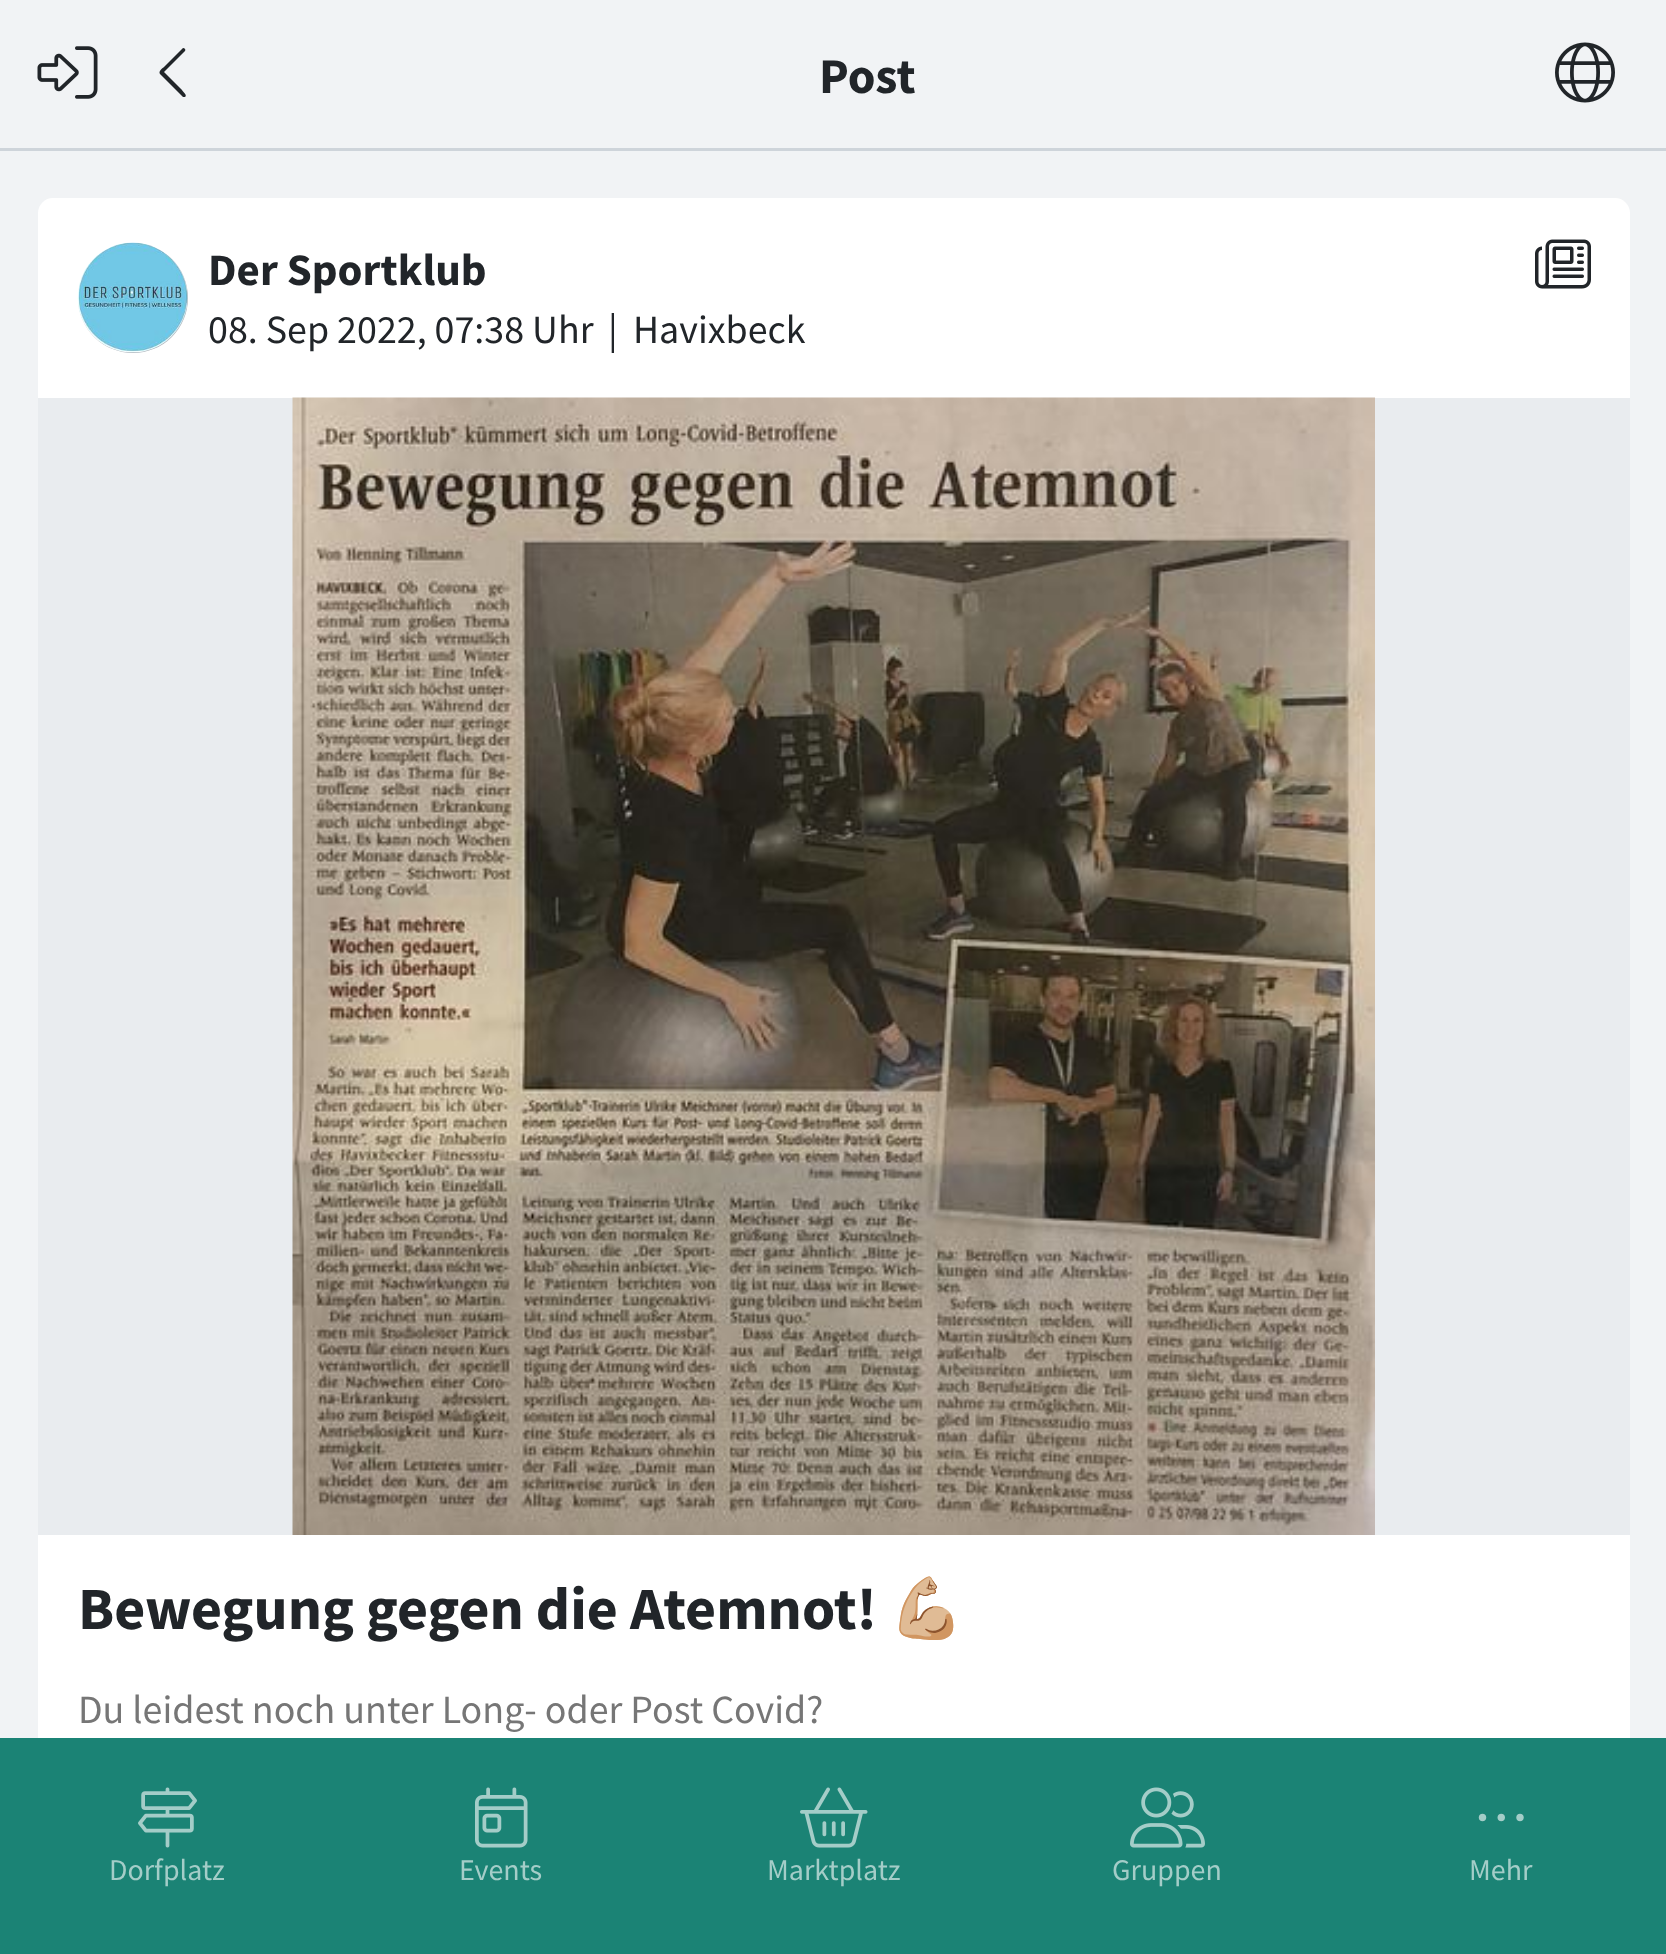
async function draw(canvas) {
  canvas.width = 1666;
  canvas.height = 1954;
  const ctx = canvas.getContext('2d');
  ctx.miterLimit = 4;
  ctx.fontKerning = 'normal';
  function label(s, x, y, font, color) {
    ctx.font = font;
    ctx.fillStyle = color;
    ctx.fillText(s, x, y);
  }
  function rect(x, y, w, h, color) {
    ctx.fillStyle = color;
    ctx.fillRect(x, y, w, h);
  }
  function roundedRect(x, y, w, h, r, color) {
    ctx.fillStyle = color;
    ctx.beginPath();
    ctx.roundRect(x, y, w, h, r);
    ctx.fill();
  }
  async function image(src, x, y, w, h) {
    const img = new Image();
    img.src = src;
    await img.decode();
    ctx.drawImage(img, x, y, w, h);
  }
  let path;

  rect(0, 0, 1666, 1954, '#f1f3f5');
  rect(0, 148, 1666, 3, '#ced4da');
  await image('assets/img1.png', 37, 46, 61, 53);
  ctx.fillStyle = '#212529';
  path = new Path2D('M160 74C158 71 163 68 164 67L183 48C185 48 186 50 185 51L164 72L182 90C182 91 188 95 185 97H183Z');
  ctx.fill(path);
  label('Post', 819, 93, 'bold 50px Source Sans Pro', '#212529');
  await image('assets/img2.png', 1555, 42, 60, 61);
  roundedRect(38, 198, 1592, 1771, 15, '#fff');
  ctx.fillStyle = '#adb5bd';
  ctx.beginPath();
  ctx.arc(133, 298, 55, 0, 2 * Math.PI);
  ctx.fill();
  await image('assets/img3.png', 77, 242, 111, 111);
  label('Der Sportklub', 208, 285, 'bold 45px Source Sans Pro', '#212529');
  label('08. Sep 2022, 07:38 Uhr', 208, 343, '40px Source Sans Pro', '#212529');
  label('|', 608, 343, '40px Source Sans Pro', '#212529');
  label('Havixbeck', 633, 343, '40px Source Sans Pro', '#212529');
  await image('assets/img4.png', 1535, 239, 56, 50);
  rect(38, 398, 1592, 1137, '#e9ecef');
  await image('assets/img5.png', 292, 397, 1083, 1138);
  label('Bewegung gegen die Atemnot!', 78, 1629, 'bold 60px Source Sans Pro', '#212529');
  label('💪🏼', 889, 1629, 'bold 60px Noto Color Emoji', '#212529');
  label('Du leidest noch unter Long- oder Post Covid?', 78, 1723, '40px Source Sans Pro', '#767676');
  rect(0, 1738, 1666, 216, '#1b8375');
  await image('assets/img6.png', 138, 1787, 59, 61);
  label('Dorfplatz', 109, 1880, '30px Source Sans Pro', '#a4cdc8');
  await image('assets/img7.png', 475, 1787, 53, 61);
  label('Events', 459, 1880, '30px Source Sans Pro', '#a4cdc8');
  await image('assets/img8.png', 800, 1787, 68, 61);
  label('Marktplatz', 767, 1880, '30px Source Sans Pro', '#a4cdc8');
  await image('assets/img9.png', 1130, 1787, 75, 61);
  label('Gruppen', 1112, 1880, '30px Source Sans Pro', '#a4cdc8');
  await image('assets/img10.png', 1478, 1813, 46, 9);
  label('Mehr', 1469, 1880, '30px Source Sans Pro', '#a4cdc8');
}

draw(document.querySelector('canvas'));
